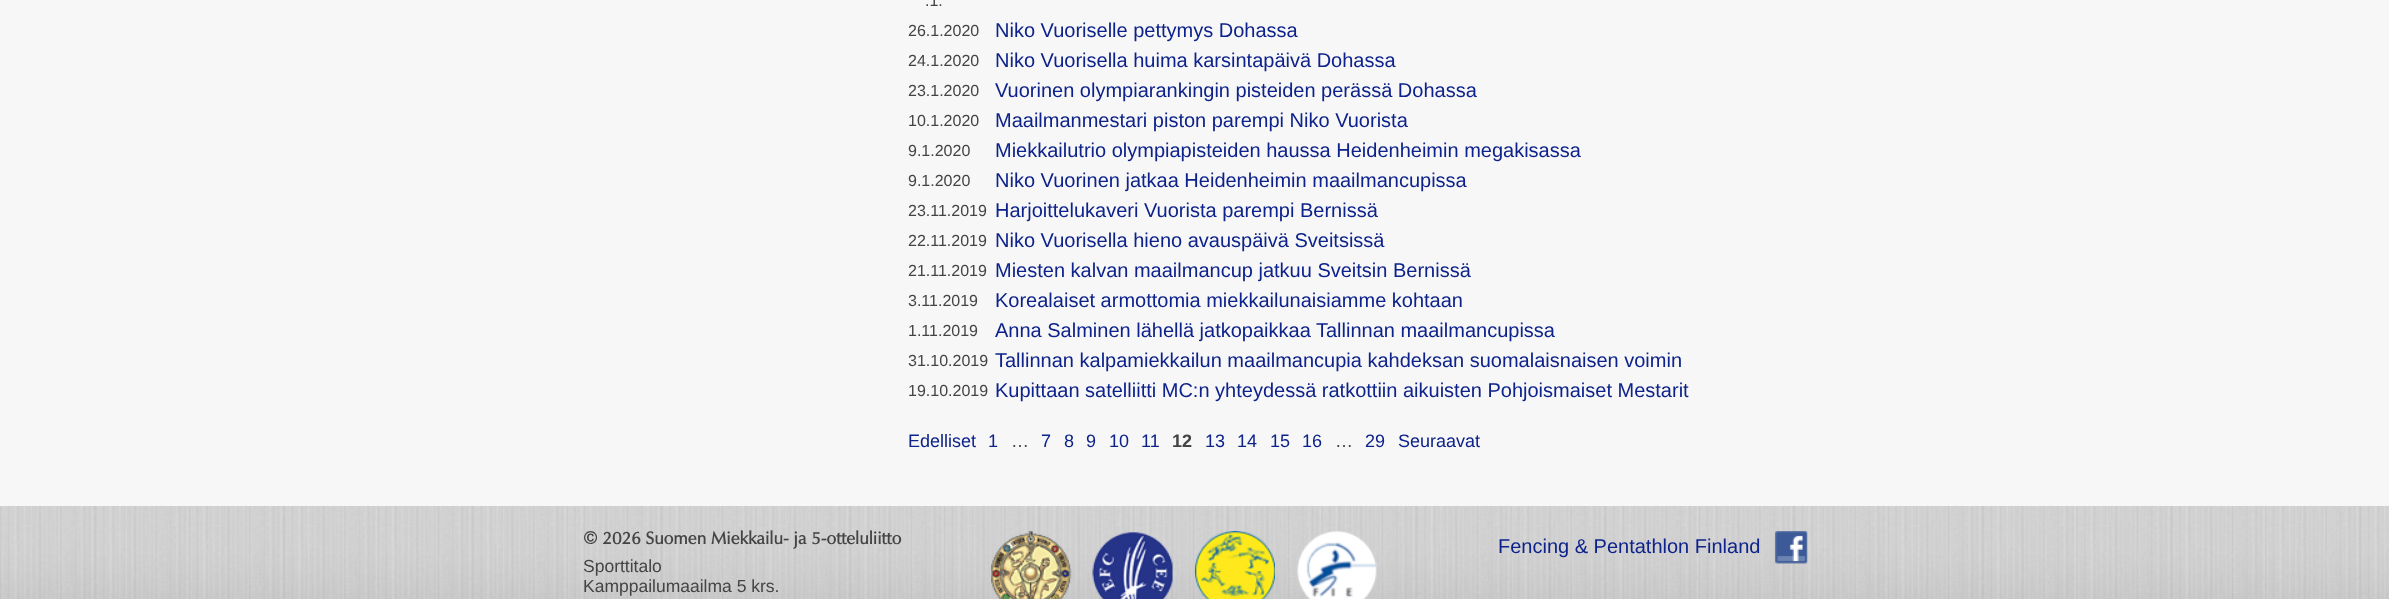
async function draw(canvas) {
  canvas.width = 2389;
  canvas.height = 599;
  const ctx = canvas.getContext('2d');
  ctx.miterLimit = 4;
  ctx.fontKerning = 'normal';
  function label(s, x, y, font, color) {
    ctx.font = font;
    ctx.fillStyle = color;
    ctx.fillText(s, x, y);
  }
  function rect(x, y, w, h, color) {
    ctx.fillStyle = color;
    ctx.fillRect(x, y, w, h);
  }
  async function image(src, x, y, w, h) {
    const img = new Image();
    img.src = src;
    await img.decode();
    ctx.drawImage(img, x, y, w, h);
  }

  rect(0, 0, 2389, 599, '#f7f7f7');
  label('.1.', 925, 6, '16px Liberation Sans', '#444');
  label('26.1.2020', 908, 36, '16px Liberation Sans', '#444');
  label('Niko Vuoriselle pettymys Dohassa', 995, 37, '20px Liberation Sans', '#0d228a');
  label('24.1.2020', 908, 66, '16px Liberation Sans', '#444');
  label('Niko Vuorisella huima karsintapäivä Dohassa', 995, 67, '20px Liberation Sans', '#0d228a');
  label('23.1.2020', 908, 96, '16px Liberation Sans', '#444');
  label('Vuorinen olympiarankingin pisteiden perässä Dohassa', 995, 97, '20px Liberation Sans', '#0d228a');
  label('10.1.2020', 908, 126, '16px Liberation Sans', '#444');
  label('Maailmanmestari piston parempi Niko Vuorista', 995, 127, '20px Liberation Sans', '#0d228a');
  label('9.1.2020', 908, 156, '16px Liberation Sans', '#444');
  label('Miekkailutrio olympiapisteiden haussa Heidenheimin megakisassa', 995, 157, '20px Liberation Sans', '#0d228a');
  label('9.1.2020', 908, 186, '16px Liberation Sans', '#444');
  label('Niko Vuorinen jatkaa Heidenheimin maailmancupissa', 995, 187, '20px Liberation Sans', '#0d228a');
  label('23.11.2019', 908, 216, '16px Liberation Sans', '#444');
  label('Harjoittelukaveri Vuorista parempi Bernissä', 995, 217, '20px Liberation Sans', '#0d228a');
  label('22.11.2019', 908, 246, '16px Liberation Sans', '#444');
  label('Niko Vuorisella hieno avauspäivä Sveitsissä', 995, 247, '20px Liberation Sans', '#0d228a');
  label('21.11.2019', 908, 276, '16px Liberation Sans', '#444');
  label('Miesten kalvan maailmancup jatkuu Sveitsin Bernissä', 995, 277, '20px Liberation Sans', '#0d228a');
  label('3.11.2019', 908, 306, '16px Liberation Sans', '#444');
  label('Korealaiset armottomia miekkailunaisiamme kohtaan', 995, 307, '20px Liberation Sans', '#0d228a');
  label('1.11.2019', 908, 336, '16px Liberation Sans', '#444');
  label('Anna Salminen lähellä jatkopaikkaa Tallinnan maailmancupissa', 995, 337, '20px Liberation Sans', '#0d228a');
  label('31.10.2019', 908, 366, '16px Liberation Sans', '#444');
  label('Tallinnan kalpamiekkailun maailmancupia kahdeksan suomalaisnaisen voimin', 995, 367, '20px Liberation Sans', '#0d228a');
  label('19.10.2019', 908, 396, '16px Liberation Sans', '#444');
  label('Kupittaan satelliitti MC:n yhteydessä ratkottiin aikuisten Pohjoismaiset Mestarit', 995, 397, '20px Liberation Sans', '#0d228a');
  label('Edelliset', 908, 447, '18px Liberation Sans', '#0d228a');
  label('1', 988, 447, '18px Liberation Sans', '#0d228a');
  label('…', 1011, 447, '18px Liberation Sans', '#444');
  label('7', 1041, 447, '18px Liberation Sans', '#0d228a');
  label('8', 1064, 447, '18px Liberation Sans', '#0d228a');
  label('9', 1086, 447, '18px Liberation Sans', '#0d228a');
  label('10', 1109, 447, '18px Liberation Sans', '#0d228a');
  label('11', 1141, 447, '18px Liberation Sans', '#0d228a');
  label('12', 1172, 447, 'bold 18px Liberation Sans', '#444');
  label('13', 1205, 447, '18px Liberation Sans', '#0d228a');
  label('14', 1237, 447, '18px Liberation Sans', '#0d228a');
  label('15', 1270, 447, '18px Liberation Sans', '#0d228a');
  label('16', 1302, 447, '18px Liberation Sans', '#0d228a');
  label('…', 1335, 447, '18px Liberation Sans', '#444');
  label('29', 1365, 447, '18px Liberation Sans', '#0d228a');
  label('Seuraavat', 1398, 447, '18px Liberation Sans', '#0d228a');
  await image('assets/img1.png', 0, 506, 2389, 93);
  label('© 2026 Suomen Miekkailu- ja 5-otteluliitto', 583, 544, 'bold 17.5px "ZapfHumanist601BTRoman"', '#444');
  label('Sporttitalo', 583, 572, '17.5px Liberation Sans', '#444');
  label('Kamppailumaailma 5 krs.', 583, 592, '17.5px Liberation Sans', '#444');
  await image('assets/img2.png', 991, 531, 81, 68);
  await image('assets/img3.png', 1092, 532, 81, 67);
  await image('assets/img4.png', 1195, 531, 80, 68);
  await image('assets/img5.png', 1297, 531, 81, 68);
  await image('assets/img6.png', 1775, 531, 33, 33);
  label('Fencing & Pentathlon Finland', 1498, 553, '20px Liberation Sans', '#0d228a');
}

draw(document.querySelector('canvas'));
